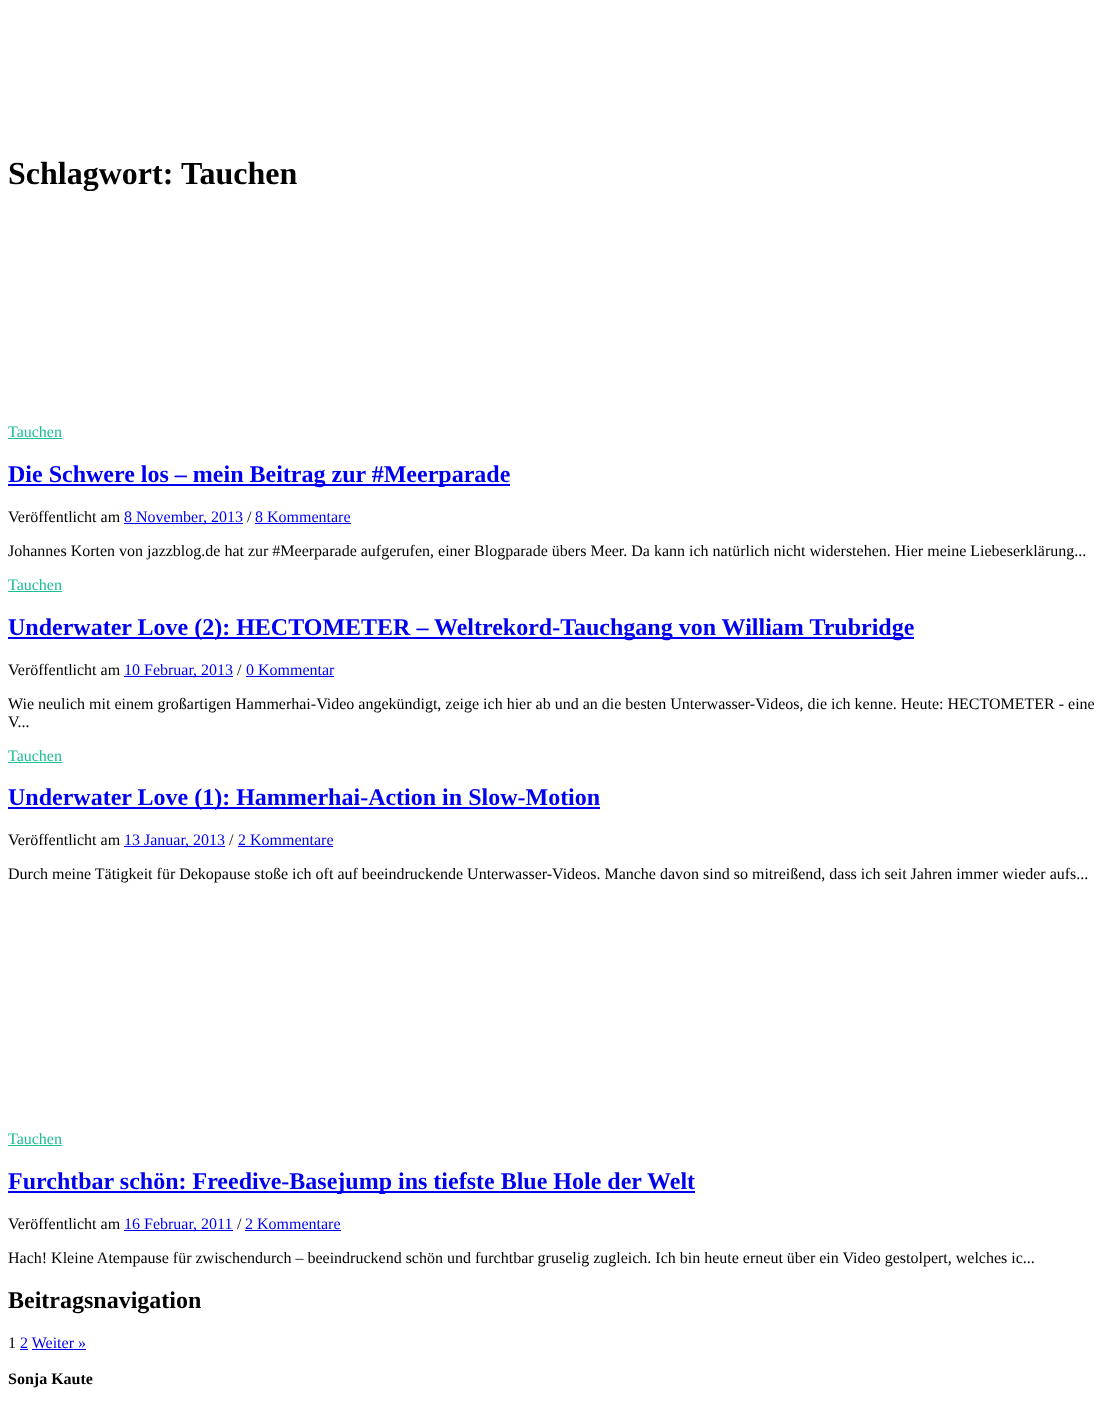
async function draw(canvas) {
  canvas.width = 1107;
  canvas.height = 1405;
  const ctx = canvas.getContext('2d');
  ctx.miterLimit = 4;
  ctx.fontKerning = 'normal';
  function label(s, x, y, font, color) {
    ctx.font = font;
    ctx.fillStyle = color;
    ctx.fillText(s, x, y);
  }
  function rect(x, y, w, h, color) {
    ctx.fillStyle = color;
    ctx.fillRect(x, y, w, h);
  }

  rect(0, 0, 1107, 1405, '#fff');
  label('Schlagwort:', 8, 184, 'bold 32px Liberation Serif', '#000');
  label('Tauchen', 181, 184, 'bold 32px Liberation Serif', '#000');
  label('Tauchen', 8, 437, '16px Liberation Serif', '#1ebc97');
  rect(8, 438, 54, 1, '#1ebc97');
  rect(8, 484, 502, 2, '#00e');
  label('Die Schwere los – mein Beitrag zur #Meerparade', 8, 482, 'bold 24px Liberation Serif', '#00e');
  label('Veröffentlicht am', 8, 522, '16px Liberation Serif', '#000');
  rect(124, 523, 119, 1, '#00e');
  label('8 November, 2013', 124, 522, '16px Liberation Serif', '#00e');
  label('/', 247, 522, '16px Liberation Serif', '#000');
  label('8 Kommentare', 255, 522, '16px Liberation Serif', '#00e');
  rect(255, 523, 96, 1, '#00e');
  label('Johannes Korten von jazzblog.de hat zur #Meerparade aufgerufen, einer Blogparade übers Meer. Da kann ich natürlich nicht widerstehen. Hier meine Liebeserklärung...', 8, 556, '16px Liberation Serif', '#000');
  label('Tauchen', 8, 590, '16px Liberation Serif', '#1ebc97');
  rect(8, 591, 54, 1, '#1ebc97');
  rect(8, 637, 906, 2, '#00e');
  label('Underwater Love (2): HECTOMETER – Weltrekord-Tauchgang von William Trubridge', 8, 635, 'bold 24px Liberation Serif', '#00e');
  label('Veröffentlicht am', 8, 675, '16px Liberation Serif', '#000');
  rect(124, 676, 109, 1, '#00e');
  label('10 Februar, 2013', 124, 675, '16px Liberation Serif', '#00e');
  label('/', 237, 675, '16px Liberation Serif', '#000');
  label('0 Kommentar', 246, 675, '16px Liberation Serif', '#00e');
  rect(246, 676, 88, 1, '#00e');
  label('Wie neulich mit einem großartigen Hammerhai-Video angekündigt, zeige ich hier ab und an die besten Unterwasser-Videos, die ich kenne. Heute: HECTOMETER - eine', 8, 709, '16px Liberation Serif', '#000');
  label('V...', 8, 727, '16px Liberation Serif', '#000');
  label('Tauchen', 8, 761, '16px Liberation Serif', '#1ebc97');
  rect(8, 762, 54, 1, '#1ebc97');
  rect(8, 807, 592, 2, '#00e');
  label('Underwater Love (1): Hammerhai-Action in Slow-Motion', 8, 805, 'bold 24px Liberation Serif', '#00e');
  label('Veröffentlicht am', 8, 845, '16px Liberation Serif', '#000');
  rect(124, 846, 101, 1, '#00e');
  label('13 Januar, 2013', 124, 845, '16px Liberation Serif', '#00e');
  label('/', 229, 845, '16px Liberation Serif', '#000');
  label('2 Kommentare', 238, 845, '16px Liberation Serif', '#00e');
  rect(238, 846, 95, 1, '#00e');
  label('Durch meine Tätigkeit für Dekopause stoße ich oft auf beeindruckende Unterwasser-Videos. Manche davon sind so mitreißend, dass ich seit Jahren immer wieder aufs...', 8, 879, '16px Liberation Serif', '#000');
  label('Tauchen', 8, 1144, '16px Liberation Serif', '#1ebc97');
  rect(8, 1145, 54, 1, '#1ebc97');
  rect(8, 1191, 687, 2, '#00e');
  label('Furchtbar schön: Freedive-Basejump ins tiefste Blue Hole der Welt', 8, 1189, 'bold 24px Liberation Serif', '#00e');
  label('Veröffentlicht am', 8, 1229, '16px Liberation Serif', '#000');
  rect(124, 1230, 109, 1, '#00e');
  label('16 Februar, 2011', 124, 1229, '16px Liberation Serif', '#00e');
  label('/', 237, 1229, '16px Liberation Serif', '#000');
  label('2 Kommentare', 245, 1229, '16px Liberation Serif', '#00e');
  rect(245, 1230, 96, 1, '#00e');
  label('Hach! Kleine Atempause für zwischendurch – beeindruckend schön und furchtbar gruselig zugleich. Ich bin heute erneut über ein Video gestolpert, welches ic...', 8, 1263, '16px Liberation Serif', '#000');
  label('Beitragsnavigation', 8, 1308, 'bold 24px Liberation Serif', '#000');
  label('1', 8, 1348, '16px Liberation Serif', '#000');
  label('2 Weiter »', 20, 1348, '16px Liberation Serif', '#00e');
  rect(20, 1349, 8, 1, '#00e');
  rect(32, 1349, 54, 1, '#00e');
  label('Sonja Kaute', 8, 1384, 'bold 16px Liberation Serif', '#000');
}

draw(document.querySelector('canvas'));
